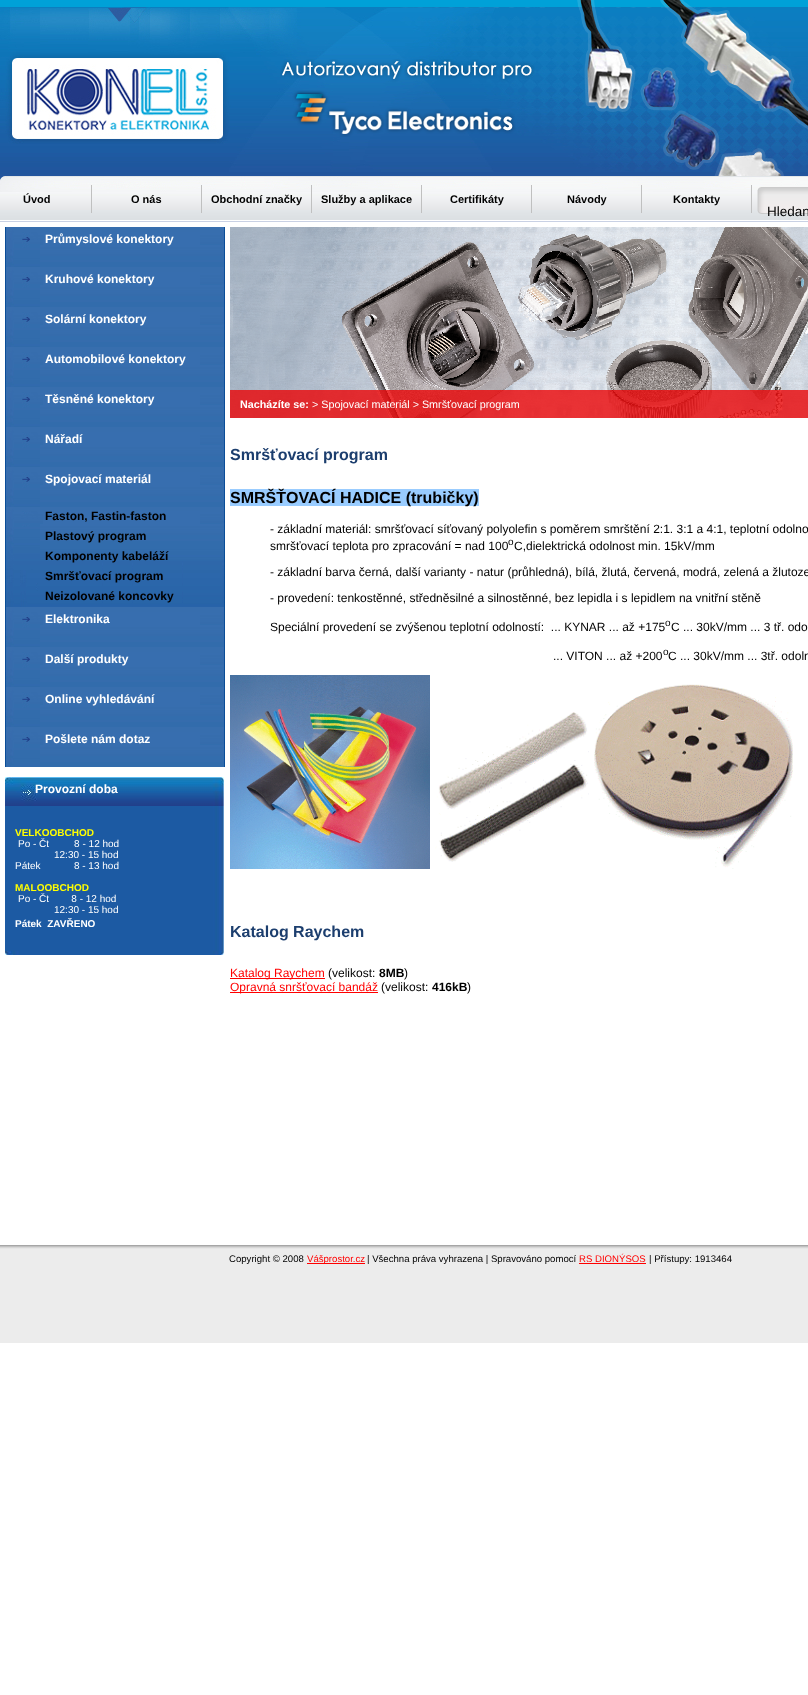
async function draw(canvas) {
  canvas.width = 808;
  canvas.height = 1695;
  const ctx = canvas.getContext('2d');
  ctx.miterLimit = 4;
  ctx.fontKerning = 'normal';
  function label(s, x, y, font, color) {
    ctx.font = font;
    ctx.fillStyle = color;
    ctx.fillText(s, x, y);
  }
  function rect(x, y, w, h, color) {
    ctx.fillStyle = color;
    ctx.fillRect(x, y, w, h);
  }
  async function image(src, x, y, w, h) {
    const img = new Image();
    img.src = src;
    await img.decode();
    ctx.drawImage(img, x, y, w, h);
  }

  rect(0, 0, 808, 1695, '#fff');
  await image('assets/img1.png', 0, 0, 808, 176);
  await image('assets/img2.png', 0, 7, 229, 137);
  await image('assets/img4.png', 229, 7, 579, 165);
  await image('assets/img3.png', 577, 0, 231, 176);
  await image('assets/img5.png', 280, 59, 255, 78);
  await image('assets/img6.png', 0, 176, 808, 46);
  rect(91, 185, 1, 28, '#c0c0c0');
  label('Úvod', 23, 203, 'bold 11px Liberation Sans', '#000');
  rect(201, 185, 1, 28, '#c0c0c0');
  label('O nás', 131, 203, 'bold 11px Liberation Sans', '#000');
  rect(311, 185, 1, 28, '#c0c0c0');
  label('Obchodní značky', 211, 203, 'bold 11px Liberation Sans', '#000');
  rect(421, 185, 1, 28, '#c0c0c0');
  label('Služby a aplikace', 321, 203, 'bold 11px Liberation Sans', '#000');
  rect(531, 185, 1, 28, '#c0c0c0');
  label('Certifikáty', 450, 203, 'bold 11px Liberation Sans', '#000');
  rect(641, 185, 1, 28, '#c0c0c0');
  label('Návody', 567, 203, 'bold 11px Liberation Sans', '#000');
  rect(751, 185, 1, 28, '#c0c0c0');
  label('Kontakty', 673, 203, 'bold 11px Liberation Sans', '#000');
  await image('assets/img7.png', 757, 187, 51, 27);
  label('Hledan', 767, 216, '13.5px Liberation Sans', '#000');
  await image('assets/img8.png', 5, 427, 220, 300);
  await image('assets/img9.png', 5, 227, 220, 40);
  label('Průmyslové konektory', 45, 243, 'bold 12px Liberation Sans', '#fff');
  await image('assets/img9.png', 5, 267, 220, 40);
  label('Kruhové konektory', 45, 283, 'bold 12px Liberation Sans', '#fff');
  await image('assets/img9.png', 5, 307, 220, 40);
  label('Solární konektory', 45, 323, 'bold 12px Liberation Sans', '#fff');
  await image('assets/img9.png', 5, 347, 220, 40);
  label('Automobilové konektory', 45, 363, 'bold 12px Liberation Sans', '#fff');
  await image('assets/img9.png', 5, 387, 220, 40);
  label('Těsněné konektory', 45, 403, 'bold 12px Liberation Sans', '#fff');
  await image('assets/img10.png', 6, 427, 218, 40);
  label('Nářadí', 45, 443, 'bold 12px Liberation Sans', '#fff');
  await image('assets/img10.png', 6, 467, 218, 40);
  label('Spojovací materiál', 45, 483, 'bold 12px Liberation Sans', '#fff');
  label('Faston, Fastin-faston', 45, 520, 'bold 12px Liberation Sans', '#000');
  label('Plastový program', 45, 540, 'bold 12px Liberation Sans', '#000');
  label('Komponenty kabeláží', 45, 560, 'bold 12px Liberation Sans', '#000');
  label('Smršťovací program', 45, 580, 'bold 12px Liberation Sans', '#000');
  label('Neizolované koncovky', 45, 600, 'bold 12px Liberation Sans', '#000');
  await image('assets/img10.png', 6, 607, 218, 40);
  label('Elektronika', 45, 623, 'bold 12px Liberation Sans', '#fff');
  await image('assets/img10.png', 6, 647, 218, 40);
  label('Další produkty', 45, 663, 'bold 12px Liberation Sans', '#fff');
  await image('assets/img10.png', 6, 687, 218, 40);
  label('Online vyhledávání', 45, 703, 'bold 12px Liberation Sans', '#fff');
  await image('assets/img9.png', 5, 727, 220, 40);
  label('Pošlete nám dotaz', 45, 743, 'bold 12px Liberation Sans', '#fff');
  await image('assets/img11.png', 5, 777, 219, 29);
  label('Provozní doba', 35, 793, 'bold 12px Liberation Sans', '#fff');
  await image('assets/img12.png', 5, 806, 219, 145);
  label('VELKOOBCHOD', 15, 836, 'bold 10px Liberation Sans', '#ff0');
  label('Po - Čt         8 - 12 hod', 18, 847, '10px Liberation Sans', '#fff');
  label('12:30 - 15 hod', 54, 858, '10px Liberation Sans', '#fff');
  label('Pátek            8 - 13 hod', 15, 869, '10px Liberation Sans', '#fff');
  label('MALOOBCHOD', 15, 891, 'bold 10px Liberation Sans', '#ff0');
  label('Po - Čt        8 - 12 hod', 18, 902, '10px Liberation Sans', '#fff');
  label('12:30 - 15 hod', 54, 913, '10px Liberation Sans', '#fff');
  label('Pátek  ZAVŘENO', 15, 927, 'bold 10px Liberation Sans', '#fff');
  await image('assets/img13.png', 5, 951, 219, 4);
  await image('assets/img14.png', 230, 227, 578, 191);
  label('Nacházíte se:', 240, 408, 'bold 10.75px Liberation Sans', '#fff');
  label('> Spojovací materiál > Smršťovací program', 312, 408, '10.75px Liberation Sans', '#fff');
  label('Smršťovací program', 230, 460, 'bold 16px Liberation Sans', '#1c3e6e');
  rect(230, 489, 249, 17, '#9cf');
  label('SMRŠŤOVACÍ HADICE (trubičky)', 230, 503, 'bold 16px Liberation Sans', '#000');
  label('- základní materiál: smršťovací síťovaný polyolefin s poměrem smrštění 2:1. 3:1 a 4:1, teplotní odolno', 270, 533, '12px Liberation Sans', '#000');
  label('smršťovací teplota pro zpracování = nad 100', 270, 550, '12px Liberation Sans', '#000');
  label('o', 508, 545, '10px Liberation Sans', '#000');
  label('C,dielektrická odolnost min. 15kV/mm', 514, 550, '12px Liberation Sans', '#000');
  label('- základní barva černá, další varianty - natur (průhledná), bílá, žlutá, červená, modrá, zelená a žlutoze', 270, 576, '12px Liberation Sans', '#000');
  label('- provedení: tenkostěnné, středněsilné a silnostěnné, bez lepidla i s lepidlem na vnitřní stěně', 270, 602, '12px Liberation Sans', '#000');
  label('Speciální provedení se zvýšenou teplotní odolností:  ... KYNAR ... až +175', 270, 631, '12px Liberation Sans', '#000');
  label('o', 665, 626, '10px Liberation Sans', '#000');
  label('C ... 30kV/mm ... 3 tř. odo', 671, 631, '12px Liberation Sans', '#000');
  label('... VITON ... až +200', 553, 660, '12px Liberation Sans', '#000');
  label('o', 663, 655, '10px Liberation Sans', '#000');
  label('C ... 30kV/mm ... 3tř. odoln', 668, 660, '12px Liberation Sans', '#000');
  await image('assets/img15.png', 230, 675, 200, 194);
  await image('assets/img16.png', 435, 712, 154, 150);
  await image('assets/img17.png', 594, 684, 199, 185);
  label('Katalog Raychem', 230, 937, 'bold 16px Liberation Sans', '#1c3e6e');
  rect(230, 978, 95, 1, '#f00');
  label('Katalog Raychem', 230, 977, '12px Liberation Sans', '#f00');
  label('(velikost:', 328, 977, '12px Liberation Sans', '#000');
  label('8MB', 379, 977, 'bold 12px Liberation Sans', '#000');
  label(')', 404, 977, '12px Liberation Sans', '#000');
  rect(230, 992, 148, 1, '#f00');
  label('Opravná snršťovací bandáž', 230, 991, '12px Liberation Sans', '#f00');
  label('(velikost:', 381, 991, '12px Liberation Sans', '#000');
  label('416kB', 432, 991, 'bold 12px Liberation Sans', '#000');
  label(')', 467, 991, '12px Liberation Sans', '#000');
  await image('assets/img18.png', 0, 1245, 808, 98);
  label('Copyright © 2008', 229, 1262, '9.6px Liberation Sans', '#000');
  rect(307, 1263, 58, 1, '#f00');
  label('Vášprostor.cz', 307, 1262, '9.6px Liberation Sans', '#f00');
  label('| Všechna práva vyhrazena | Spravováno pomocí', 367, 1262, '9.6px Liberation Sans', '#000');
  label('RS DIONÝSOS', 579, 1262, '9.6px Liberation Sans', '#f00');
  rect(579, 1263, 67, 1, '#f00');
  label('| Přístupy: 1913464', 649, 1262, '9.6px Liberation Sans', '#000');
}

draw(document.querySelector('canvas'));
